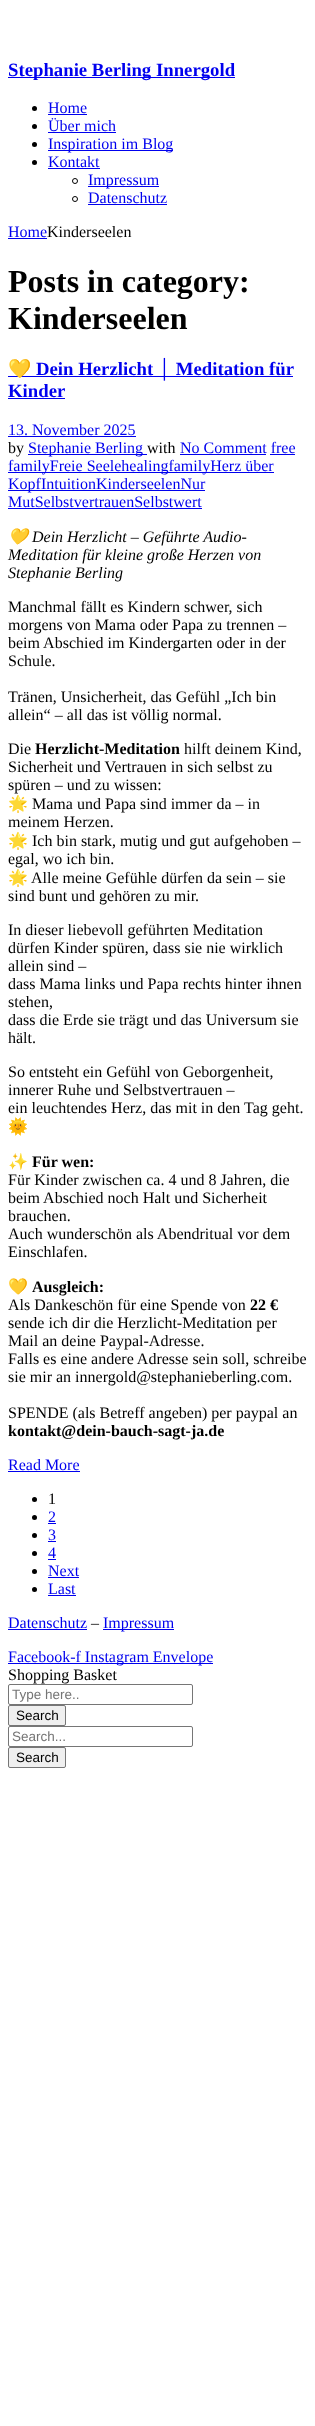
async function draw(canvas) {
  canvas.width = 315;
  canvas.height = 2426;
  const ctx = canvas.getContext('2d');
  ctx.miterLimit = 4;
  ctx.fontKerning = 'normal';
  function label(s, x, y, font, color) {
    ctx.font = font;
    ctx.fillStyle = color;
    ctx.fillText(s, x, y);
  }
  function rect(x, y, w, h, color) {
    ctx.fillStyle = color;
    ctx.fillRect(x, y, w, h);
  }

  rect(0, 0, 315, 2426, '#fff');
  rect(8, 77, 227, 1, '#00e');
  label('Stephanie Berling Innergold', 8, 76, 'bold 18.75px Liberation Serif', '#00e');
  ctx.fillStyle = '#000';
  ctx.beginPath();
  ctx.arc(34.5, 108.5, 2.5, 0, 2 * Math.PI);
  ctx.fill();
  label('Home', 48, 113, '16px Liberation Serif', '#00e');
  rect(48, 114, 39, 1, '#00e');
  ctx.fillStyle = '#000';
  ctx.beginPath();
  ctx.arc(34.5, 126.5, 2.5, 0, 2 * Math.PI);
  ctx.fill();
  label('Über mich', 48, 131, '16px Liberation Serif', '#00e');
  rect(48, 132, 68, 1, '#00e');
  ctx.fillStyle = '#000';
  ctx.beginPath();
  ctx.arc(34.5, 144.5, 2.5, 0, 2 * Math.PI);
  ctx.fill();
  rect(48, 150, 125, 1, '#00e');
  label('Inspiration im Blog', 48, 149, '16px Liberation Serif', '#00e');
  ctx.fillStyle = '#000';
  ctx.beginPath();
  ctx.arc(34.5, 162.5, 2.5, 0, 2 * Math.PI);
  ctx.fill();
  label('Kontakt', 48, 167, '16px Liberation Serif', '#00e');
  rect(48, 168, 52, 1, '#00e');
  ctx.beginPath();
  ctx.arc(75, 181, 2.5, 0, 2 * Math.PI);
  ctx.strokeStyle = '#000';
  ctx.stroke();
  rect(88, 186, 71, 1, '#00e');
  label('Impressum', 88, 185, '16px Liberation Serif', '#00e');
  ctx.beginPath();
  ctx.arc(75, 199, 2.5, 0, 2 * Math.PI);
  ctx.stroke();
  label('Datenschutz', 88, 203, '16px Liberation Serif', '#00e');
  rect(88, 204, 79, 1, '#00e');
  label('Home', 8, 237, '16px Liberation Serif', '#00e');
  rect(8, 238, 39, 1, '#00e');
  label('Kinderseelen', 47, 237, '16px Liberation Serif', '#000');
  label('Posts in category:', 8, 292, 'bold 32px Liberation Serif', '#000');
  label('Kinderseelen', 8, 329, 'bold 32px Liberation Serif', '#000');
  rect(8, 376, 285, 1, '#00e');
  label('💛', 8, 375, 'bold 18.75px Noto Color Emoji', '#00e');
  label('Dein Herzlicht │ Meditation für', 36, 375, 'bold 18.75px Liberation Serif', '#00e');
  label('Kinder', 8, 397, 'bold 18.75px Liberation Serif', '#00e');
  rect(8, 398, 57, 1, '#00e');
  label('13. November 2025', 8, 435, '16px Liberation Serif', '#00e');
  rect(8, 436, 128, 1, '#00e');
  label('by', 8, 453, '16px Liberation Serif', '#000');
  rect(28, 454, 119, 1, '#00e');
  label('Stephanie Berling', 28, 453, '16px Liberation Serif', '#00e');
  label('with', 147, 453, '16px Liberation Serif', '#000');
  label('No Comment free', 180, 453, '16px Liberation Serif', '#00e');
  rect(180, 454, 86, 1, '#00e');
  rect(8, 472, 202, 1, '#00e');
  label('familyFreie SeelehealingfamilyHerz über', 8, 471, '16px Liberation Serif', '#00e');
  rect(270, 454, 25, 1, '#00e');
  rect(210, 472, 64, 1, '#00e');
  rect(8, 490, 172, 1, '#00e');
  label('KopfIntuitionKinderseelenNur', 8, 489, '16px Liberation Serif', '#00e');
  rect(180, 490, 25, 1, '#00e');
  label('MutSelbstvertrauenSelbstwert', 8, 507, '16px Liberation Serif', '#00e');
  rect(8, 508, 194, 1, '#00e');
  label('💛', 8, 542, 'italic 16px Noto Color Emoji', '#000');
  label('Dein Herzlicht – Geführte Audio-', 32, 542, 'italic 16px Liberation Serif', '#000');
  label('Meditation für kleine große Herzen von', 8, 560, 'italic 16px Liberation Serif', '#000');
  label('Stephanie Berling', 8, 578, 'italic 16px Liberation Serif', '#000');
  label('Manchmal fällt es Kindern schwer, sich', 8, 612, '16px Liberation Serif', '#000');
  label('morgens von Mama oder Papa zu trennen –', 8, 630, '16px Liberation Serif', '#000');
  label('beim Abschied im Kindergarten oder in der', 8, 648, '16px Liberation Serif', '#000');
  label('Schule.', 8, 666, '16px Liberation Serif', '#000');
  label('Tränen, Unsicherheit, das Gefühl „Ich bin', 8, 702, '16px Liberation Serif', '#000');
  label('allein“ – all das ist völlig normal.', 8, 720, '16px Liberation Serif', '#000');
  label('Die', 8, 754, '16px Liberation Serif', '#000');
  label('Herzlicht-Meditation', 35, 754, 'bold 16px Liberation Serif', '#000');
  label('hilft deinem Kind,', 184, 754, '16px Liberation Serif', '#000');
  label('Sicherheit und Vertrauen in sich selbst zu', 8, 772, '16px Liberation Serif', '#000');
  label('spüren – und zu wissen:', 8, 790, '16px Liberation Serif', '#000');
  label('🌟', 8, 809, '16px Noto Color Emoji', '#000');
  label('Mama und Papa sind immer da – in', 32, 809, '16px Liberation Serif', '#000');
  label('meinem Herzen.', 8, 827, '16px Liberation Serif', '#000');
  label('🌟', 8, 846, '16px Noto Color Emoji', '#000');
  label('Ich bin stark, mutig und gut aufgehoben –', 32, 846, '16px Liberation Serif', '#000');
  label('egal, wo ich bin.', 8, 864, '16px Liberation Serif', '#000');
  label('🌟', 8, 883, '16px Noto Color Emoji', '#000');
  label('Alle meine Gefühle dürfen da sein – sie', 31, 883, '16px Liberation Serif', '#000');
  label('sind bunt und gehören zu mir.', 8, 901, '16px Liberation Serif', '#000');
  label('In dieser liebevoll geführten Meditation', 8, 935, '16px Liberation Serif', '#000');
  label('dürfen Kinder spüren, dass sie nie wirklich', 8, 953, '16px Liberation Serif', '#000');
  label('allein sind –', 8, 971, '16px Liberation Serif', '#000');
  label('dass Mama links und Papa rechts hinter ihnen', 8, 989, '16px Liberation Serif', '#000');
  label('stehen,', 8, 1007, '16px Liberation Serif', '#000');
  label('dass die Erde sie trägt und das Universum sie', 8, 1025, '16px Liberation Serif', '#000');
  label('hält.', 8, 1043, '16px Liberation Serif', '#000');
  label('So entsteht ein Gefühl von Geborgenheit,', 8, 1077, '16px Liberation Serif', '#000');
  label('innerer Ruhe und Selbstvertrauen –', 8, 1095, '16px Liberation Serif', '#000');
  label('ein leuchtendes Herz, das mit in den Tag geht.', 8, 1113, '16px Liberation Serif', '#000');
  label('🌞', 8, 1132, '16px Noto Color Emoji', '#000');
  label('✨', 8, 1167, '16px Noto Color Emoji', '#000');
  label('Für wen:', 32, 1167, 'bold 16px Liberation Serif', '#000');
  label('Für Kinder zwischen ca. 4 und 8 Jahren, die', 8, 1185, '16px Liberation Serif', '#000');
  label('beim Abschied noch Halt und Sicherheit', 8, 1203, '16px Liberation Serif', '#000');
  label('brauchen.', 8, 1221, '16px Liberation Serif', '#000');
  label('Auch wunderschön als Abendritual vor dem', 8, 1239, '16px Liberation Serif', '#000');
  label('Einschlafen.', 8, 1257, '16px Liberation Serif', '#000');
  label('💛', 8, 1292, '16px Noto Color Emoji', '#000');
  label('Ausgleich:', 32, 1292, 'bold 16px Liberation Serif', '#000');
  label('Als Dankeschön für eine Spende von', 8, 1310, '16px Liberation Serif', '#000');
  label('22 €', 250, 1310, 'bold 16px Liberation Serif', '#000');
  label('sende ich dir die Herzlicht-Meditation per', 8, 1328, '16px Liberation Serif', '#000');
  label('Mail an deine Paypal-Adresse.', 8, 1346, '16px Liberation Serif', '#000');
  label('Falls es eine andere Adresse sein soll, schreibe', 8, 1364, '16px Liberation Serif', '#000');
  label('sie mir an innergold@stephanieberling.com.', 8, 1382, '16px Liberation Serif', '#000');
  label('SPENDE (als Betreff angeben) per paypal an', 8, 1418, '16px Liberation Serif', '#000');
  label('kontakt@dein-bauch-sagt-ja.de', 8, 1436, 'bold 16px Liberation Serif', '#000');
  label('Read More', 8, 1470, '16px Liberation Serif', '#00e');
  rect(8, 1471, 72, 1, '#00e');
  ctx.fillStyle = '#000';
  ctx.beginPath();
  ctx.arc(34.5, 1499.5, 2.5, 0, 2 * Math.PI);
  ctx.fill();
  label('1', 48, 1504, '16px Liberation Serif', '#000');
  ctx.beginPath();
  ctx.arc(34.5, 1517.5, 2.5, 0, 2 * Math.PI);
  ctx.fill();
  label('2', 48, 1522, '16px Liberation Serif', '#00e');
  rect(48, 1523, 8, 1, '#00e');
  ctx.fillStyle = '#000';
  ctx.beginPath();
  ctx.arc(34.5, 1535.5, 2.5, 0, 2 * Math.PI);
  ctx.fill();
  label('3', 48, 1540, '16px Liberation Serif', '#00e');
  rect(48, 1541, 8, 1, '#00e');
  ctx.fillStyle = '#000';
  ctx.beginPath();
  ctx.arc(34.5, 1553.5, 2.5, 0, 2 * Math.PI);
  ctx.fill();
  label('4', 48, 1558, '16px Liberation Serif', '#00e');
  rect(48, 1559, 8, 1, '#00e');
  ctx.fillStyle = '#000';
  ctx.beginPath();
  ctx.arc(34.5, 1571.5, 2.5, 0, 2 * Math.PI);
  ctx.fill();
  label('Next', 48, 1576, '16px Liberation Serif', '#00e');
  rect(48, 1577, 31, 1, '#00e');
  ctx.fillStyle = '#000';
  ctx.beginPath();
  ctx.arc(34.5, 1589.5, 2.5, 0, 2 * Math.PI);
  ctx.fill();
  label('Last', 48, 1594, '16px Liberation Serif', '#00e');
  rect(48, 1595, 28, 1, '#00e');
  label('Datenschutz', 8, 1628, '16px Liberation Serif', '#00e');
  rect(8, 1629, 79, 1, '#00e');
  label('–', 91, 1628, '16px Liberation Serif', '#000');
  rect(103, 1629, 71, 1, '#00e');
  label('Impressum', 103, 1628, '16px Liberation Serif', '#00e');
  rect(8, 1663, 205, 1, '#00e');
  label('Facebook-f Instagram Envelope', 8, 1662, '16px Liberation Serif', '#00e');
  label('Shopping Basket', 8, 1680, '16px Liberation Serif', '#000');
  ctx.beginPath();
  ctx.roundRect(8.5, 1684.5, 184, 20, 1.5);
  ctx.strokeStyle = '#767676';
  ctx.stroke();
  label('Type here..', 12, 1699, '13.5px Liberation Sans', '#757575');
  ctx.fillStyle = '#efefef';
  ctx.beginPath();
  ctx.roundRect(8.5, 1705.5, 57, 20, 1.5);
  ctx.fill();
  ctx.stroke();
  label('Search', 16, 1720, '13.5px Liberation Sans', '#000');
  ctx.beginPath();
  ctx.roundRect(8.5, 1726.5, 184, 20, 1.5);
  ctx.stroke();
  label('Search...', 12, 1741, '13.5px Liberation Sans', '#757575');
  ctx.fillStyle = '#efefef';
  ctx.beginPath();
  ctx.roundRect(8.5, 1747.5, 57, 20, 1.5);
  ctx.fill();
  ctx.stroke();
  label('Search', 16, 1762, '13.5px Liberation Sans', '#000');
}

draw(document.querySelector('canvas'));
